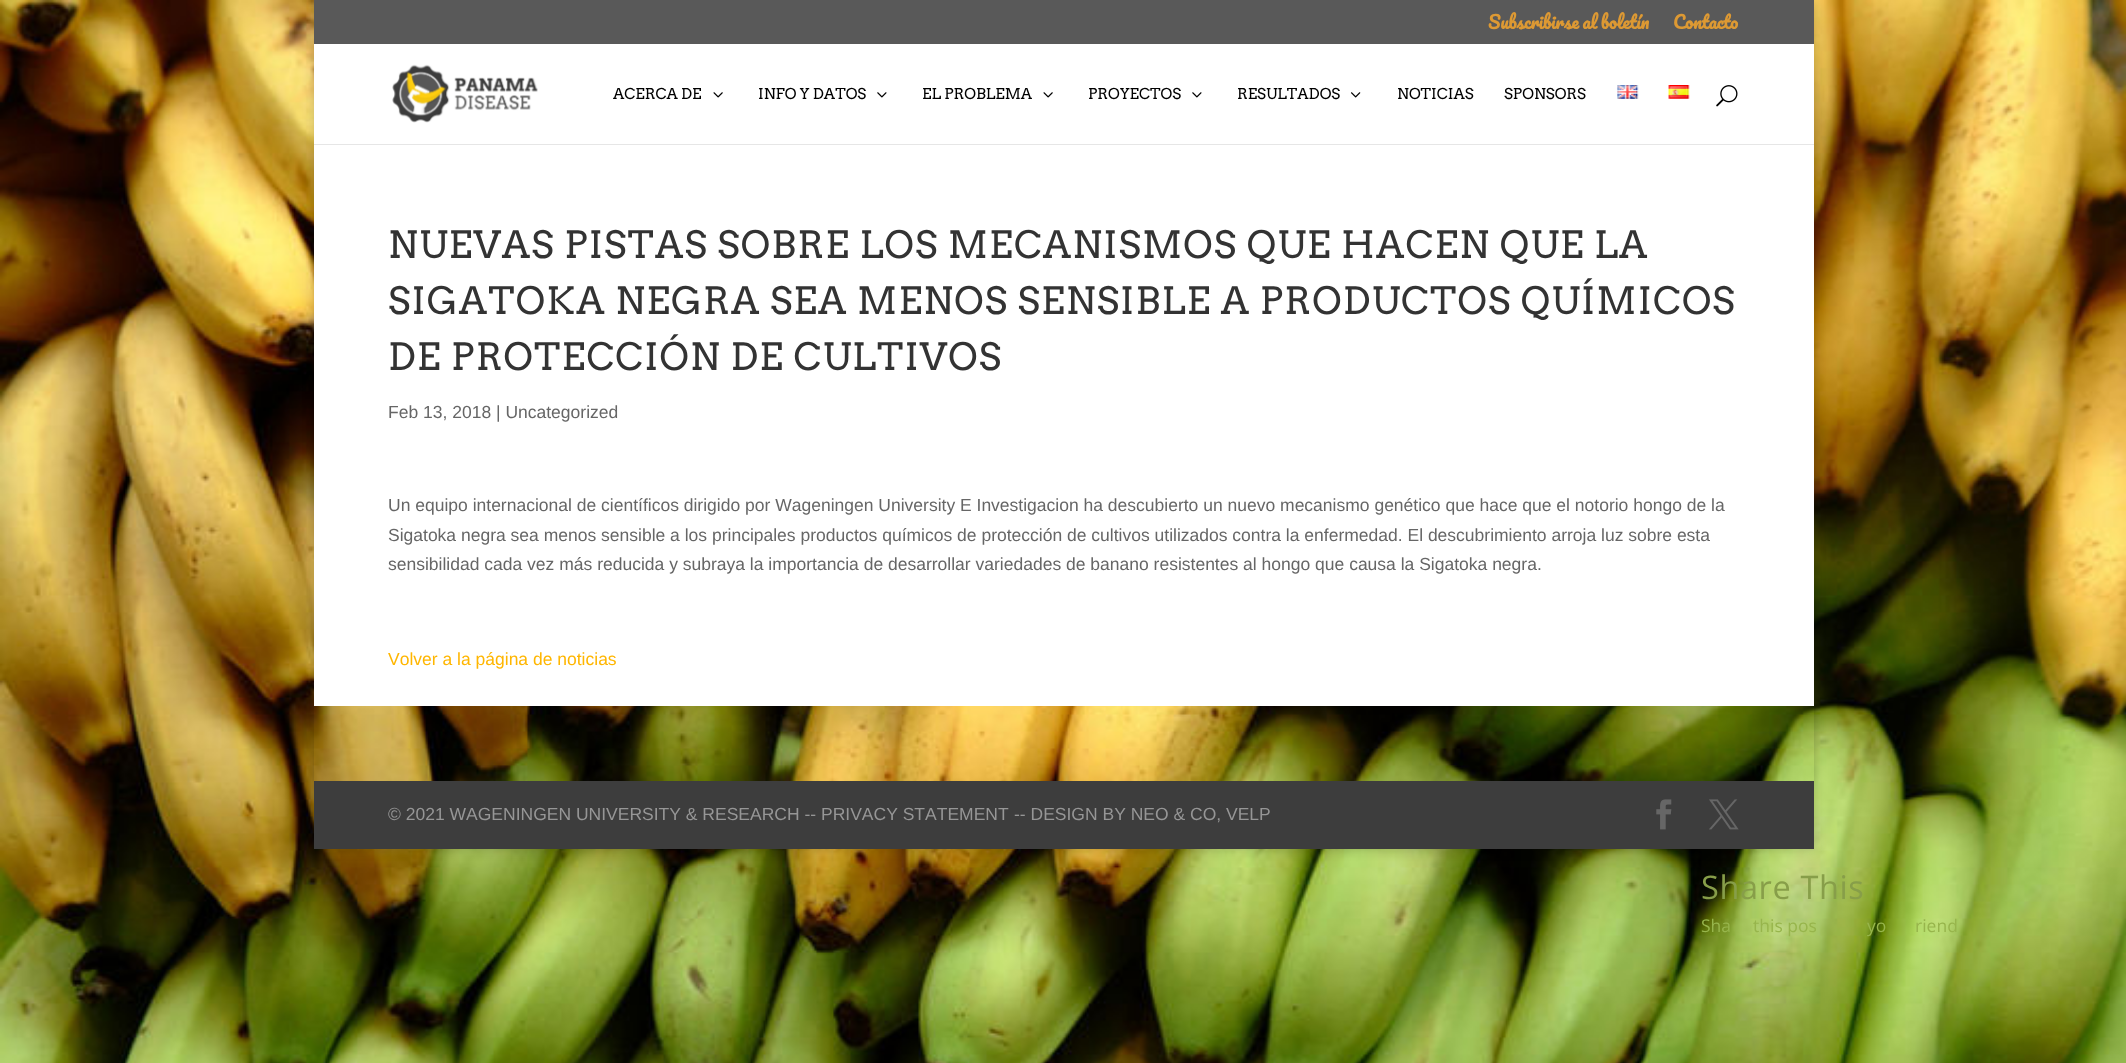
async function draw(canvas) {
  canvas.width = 2126;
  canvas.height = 1063;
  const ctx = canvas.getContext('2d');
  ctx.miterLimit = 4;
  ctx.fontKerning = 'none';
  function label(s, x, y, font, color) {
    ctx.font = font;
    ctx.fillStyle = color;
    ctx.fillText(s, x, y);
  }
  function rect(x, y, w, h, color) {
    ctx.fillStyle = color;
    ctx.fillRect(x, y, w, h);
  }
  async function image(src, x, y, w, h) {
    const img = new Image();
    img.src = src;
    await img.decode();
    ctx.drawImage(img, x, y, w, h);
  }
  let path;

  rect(0, 0, 2126, 1063, '#fff');
  await image('assets/img1.png', 0, 0, 2126, 1063);
  ctx.save();
  path = new Path2D('M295 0H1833V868H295ZM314 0H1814V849H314Z');
  ctx.clip(path, 'evenodd');
  ctx.fillStyle = '#00000033';
  ctx.filter = 'blur(6px)';
  ctx.beginPath();
  ctx.rect(314, 0, 1500, 849);
  ctx.fill();
  ctx.filter = 'none';
  ctx.restore();
  rect(314, 0, 1500, 44, '#595959');
  ctx.wordSpacing = '-1px';
  label('Subscribirse al boletín', 1488, 29, 'bold 17.5px Pacifico', '#d93');
  ctx.wordSpacing = '0px';
  label('Contacto', 1673, 29, 'bold 17.5px Pacifico', '#d93');
  ctx.fillStyle = '#e6e6e6';
  path = new Path2D('M314 144V145H1814V45V144Z');
  ctx.fill(path);
  rect(314, 44, 1500, 100, '#fff');
  await image('assets/img2.png', 392, 64, 146, 59);
  label('ACERCA DE', 613, 99, '15px Arvo', '#000');
  await image('assets/img3.png', 713, 92, 10, 6);
  label('INFO Y DATOS', 758, 99, '15px Arvo', '#000');
  await image('assets/img4.png', 877, 92, 10, 6);
  label('EL PROBLEMA', 922, 99, '15px Arvo', '#000');
  await image('assets/img3.png', 1043, 92, 10, 6);
  label('PROYECTOS', 1088, 99, '15px Arvo', '#000');
  await image('assets/img4.png', 1192, 92, 10, 6);
  label('RESULTADOS', 1237, 99, '15px Arvo', '#000');
  await image('assets/img5.png', 1351, 92, 10, 6);
  label('NOTICIAS', 1397, 99, '15px Arvo', '#000');
  label('SPONSORS', 1504, 99, '15px Arvo', '#000');
  await image('assets/img6.png', 1617, 85, 22, 14);
  await image('assets/img7.png', 1668, 85, 22, 14);
  await image('assets/img8.png', 1716, 85, 22, 22);
  rect(314, 145, 1500, 561, '#fff');
  ctx.letterSpacing = '1.25px';
  label('NUEVAS PISTAS SOBRE LOS MECANISMOS QUE HACEN QUE LA', 388, 258, '37.5px Arvo', '#333');
  label('SIGATOKA NEGRA SEA MENOS SENSIBLE A PRODUCTOS QUÍMICOS', 388, 314, '37.5px Arvo', '#333');
  label('DE PROTECCIÓN DE CULTIVOS', 388, 370, '37.5px Arvo', '#333');
  ctx.letterSpacing = '0px';
  label('Feb 13, 2018 | Uncategorized', 388, 418, '17.5px Liberation Sans', '#666');
  label('Un equipo internacional de científicos dirigido por Wageningen University E Investigacion ha descubierto un nuevo mecanismo genético que hace que el notorio hongo de la', 388, 511, '17.5px Liberation Sans', '#666');
  label('Sigatoka negra sea menos sensible a los principales productos químicos de protección de cultivos utilizados contra la enfermedad. El descubrimiento arroja luz sobre esta', 388, 541, '17.5px Liberation Sans', '#666');
  label('sensibilidad cada vez más reducida y subraya la importancia de desarrollar variedades de banano resistentes al hongo que causa la Sigatoka negra.', 388, 570, '17.5px Liberation Sans', '#666');
  label('Volver a la página de noticias', 388, 665, '17.5px Liberation Sans', '#ffb600');
  rect(314, 781, 1500, 68, '#3d3d3d');
  label('© 2021 WAGENINGEN UNIVERSITY & RESEARCH -- PRIVACY STATEMENT', 388, 820, '17.5px Liberation Sans', '#969696');
  label('-- DESIGN BY NEO & CO, VELP', 1014, 820, '17.5px Liberation Sans', '#969696');
  await image('assets/img9.png', 1656, 799, 16, 31);
  await image('assets/img10.png', 1709, 799, 30, 31);
  ctx.letterSpacing = '0.6px';
  label('Share This', 1701, 899, '32.5px Open Sans', '#879e49');
  ctx.letterSpacing = '0px';
  label('Sha', 1701, 932, '17.5px Open Sans', '#97b54c');
  label('this pos', 1753, 932, '17.5px Open Sans', '#97b54c');
  label('yo', 1867, 932, '17.5px Open Sans', '#97b54c');
  label('riend', 1915, 932, '17.5px Open Sans', '#97b54c');
}

draw(document.querySelector('canvas'));
